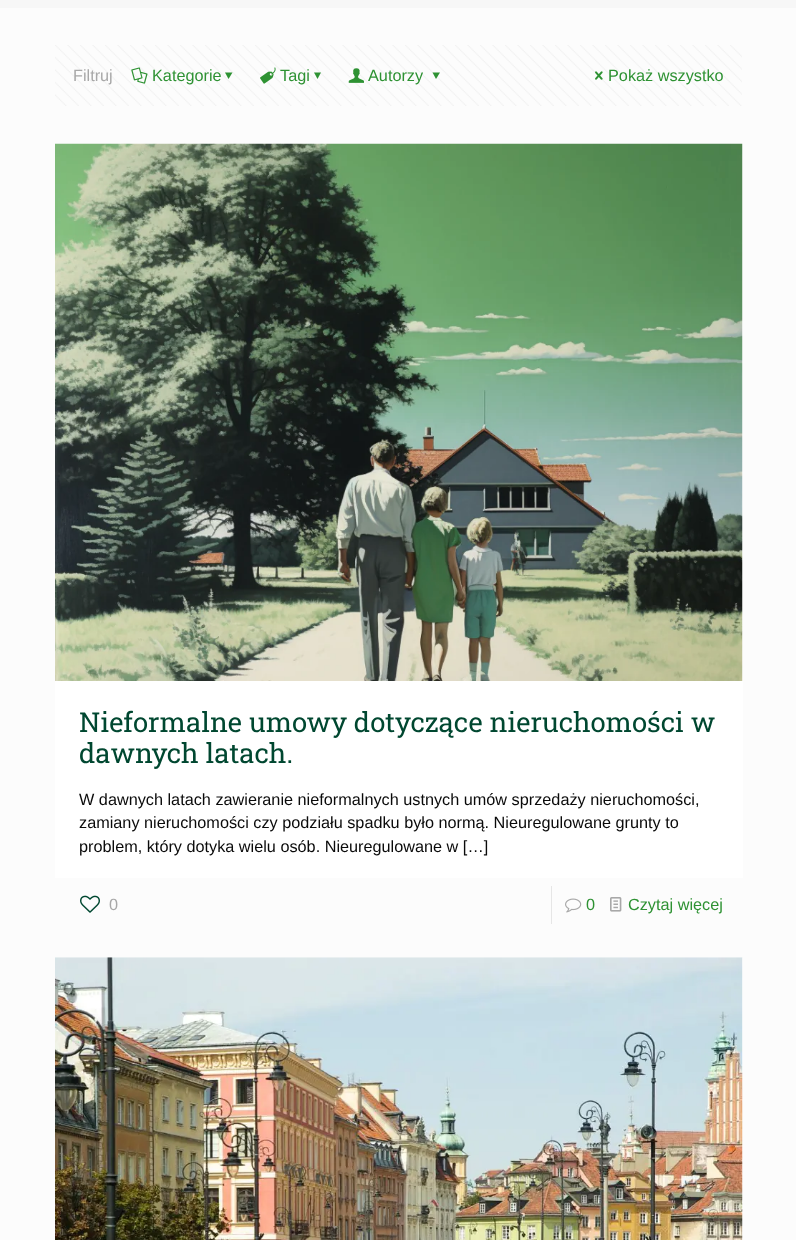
async function draw(canvas) {
  canvas.width = 796;
  canvas.height = 1240;
  const ctx = canvas.getContext('2d');
  ctx.miterLimit = 4;
  ctx.fontKerning = 'normal';
  function label(s, x, y, font, color) {
    ctx.font = font;
    ctx.fillStyle = color;
    ctx.fillText(s, x, y);
  }
  function rect(x, y, w, h, color) {
    ctx.fillStyle = color;
    ctx.fillRect(x, y, w, h);
  }
  async function image(src, x, y, w, h) {
    const img = new Image();
    img.src = src;
    await img.decode();
    ctx.drawImage(img, x, y, w, h);
  }
  let path;

  rect(0, 0, 796, 1240, '#fcfcfc');
  rect(0, 0, 796, 8, '#f7f7f7');
  await image('assets/img1.png', 55, 45, 687, 61);
  label('Filtruj', 73, 81, '16.25px Liberation Sans', '#a8a8a8');
  await image('assets/img2.png', 131, 67, 17, 17);
  label('Kategorie', 152, 81, '16.25px Liberation Sans', '#2e9233');
  path = new Path2D('M232.5 72.5L228.5 79L225 72.5Z');
  ctx.fill(path);
  await image('assets/img3.png', 260, 67, 16, 17);
  label('Tagi', 280, 81, '16.25px Liberation Sans', '#2e9233');
  path = new Path2D('M321 72.5L317.5 79L314 72.5Z');
  ctx.fill(path);
  await image('assets/img4.png', 348, 68, 16, 15);
  label('Autorzy', 368, 81, '16.25px Liberation Sans', '#2e9233');
  path = new Path2D('M440 72.5L436 79L432.5 72.5Z');
  ctx.fill(path);
  await image('assets/img5.png', 595, 71, 8, 9);
  label('Pokaż wszystko', 608, 81, '16.25px Liberation Sans', '#2e9233');
  rect(55, 144, 688, 734, '#fff');
  await image('assets/img6.png', 55, 143, 688, 538);
  label('Nieformalne umowy dotyczące nieruchomości w', 79, 732, '27.5px Roboto Slab', '#004730');
  label('dawnych latach.', 79, 763, '27.5px Roboto Slab', '#004730');
  label('W dawnych latach zawieranie nieformalnych ustnych umów sprzedaży nieruchomości,', 79, 805, '16.25px Liberation Sans', '#0a0a0a');
  label('zamiany nieruchomości czy podziału spadku było normą. Nieuregulowane grunty to', 79, 828, '16.25px Liberation Sans', '#0a0a0a');
  label('problem, który dotyka wielu osób. Nieuregulowane w […]', 79, 852, '16.25px Liberation Sans', '#0a0a0a');
  await image('assets/img7.png', 80, 895, 20, 18);
  label('0', 109, 910, '16.25px Liberation Sans', '#a8a8a8');
  rect(551, 886, 1, 38, '#e6e6e6');
  await image('assets/img8.png', 565, 898, 17, 15);
  label('0', 586, 910, '16.25px Liberation Sans', '#2e9233');
  await image('assets/img9.png', 610, 897, 12, 15);
  label('Czytaj więcej', 628, 910, '16.25px Liberation Sans', '#2e9233');
  rect(742, 958, 1, 282, '#fff');
  await image('assets/img10.png', 55, 957, 688, 283);
}

draw(document.querySelector('canvas'));
